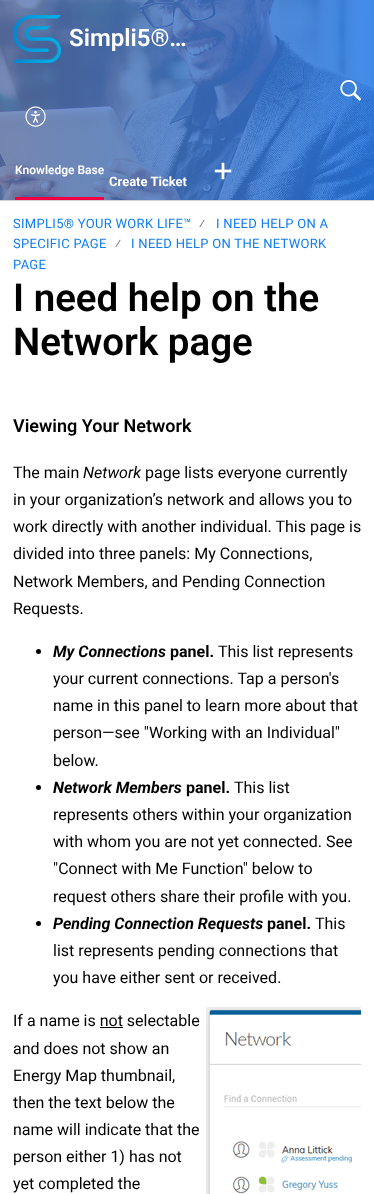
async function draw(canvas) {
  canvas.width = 374;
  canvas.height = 1194;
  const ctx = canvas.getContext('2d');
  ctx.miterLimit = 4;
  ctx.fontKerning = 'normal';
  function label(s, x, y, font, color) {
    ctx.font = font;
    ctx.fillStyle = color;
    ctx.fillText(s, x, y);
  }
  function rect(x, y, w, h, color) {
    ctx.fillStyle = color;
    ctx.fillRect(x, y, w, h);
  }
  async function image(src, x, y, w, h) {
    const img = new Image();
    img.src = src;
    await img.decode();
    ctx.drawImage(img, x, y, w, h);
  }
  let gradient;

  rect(0, 0, 374, 1194, '#fff');
  gradient = ctx.createLinearGradient(0, 100, 374, 100);
  gradient.addColorStop(0, '#5c77b3');
  gradient.addColorStop(1, '#1773ec');
  ctx.fillStyle = gradient;
  ctx.fillRect(0, 0, 374, 200);
  await image('assets/img1.png', 0, 0, 374, 200);
  await image('assets/img2.png', 13, 15, 48, 48);
  label('Simpli5®…', 69, 46, '600 24px Roboto', '#fff');
  await image('assets/img3.png', 340, 80, 21, 21);
  await image('assets/img4.png', 25, 106, 21, 21);
  rect(15, 197, 89, 3, '#f20043');
  label('Knowledge Base', 15, 174, '600 12px Roboto', '#fff');
  await image('assets/img5.png', 214, 162, 18, 18);
  label('Create Ticket', 109, 186, 'bold 13px Roboto', '#fff');
  rect(0, 200, 374, 1, '#d2d3d2');
  ctx.letterSpacing = '0.3px';
  label('SIMPLI5® YOUR WORK LIFE™', 13, 228, '13px Roboto', '#0f7df0');
  label('⁄', 199, 228, '13px Roboto', '#555');
  label('I NEED HELP ON A', 216, 228, '13px Roboto', '#0f7df0');
  label('SPECIFIC PAGE', 13, 248, '13px Roboto', '#0f7df0');
  label('⁄', 115, 248, '13px Roboto', '#555');
  label('I NEED HELP ON THE NETWORK', 131, 248, '13px Roboto', '#0f7df0');
  label('PAGE', 13, 269, '13px Roboto', '#0f7df0');
  ctx.letterSpacing = '0px';
  label('I need help on the', 13, 311, '600 38.5px Roboto', '#000');
  label('Network page', 13, 355, '600 38.5px Roboto', '#000');
  label('Viewing Your Network', 13, 432, '600 18px Roboto', '#000');
  label('The main', 13, 478, '16px Roboto', '#000');
  label('Network', 83, 478, 'italic 16px Roboto', '#000');
  label('page lists everyone currently', 145, 478, '16px Roboto', '#000');
  label('in your organization’s network and allows you to', 13, 505, '16px Roboto', '#000');
  label('work directly with another individual. This page is', 13, 532, '16px Roboto', '#000');
  label('divided into three panels: My Connections,', 13, 559, '16px Roboto', '#000');
  label('Network Members, and Pending Connection', 13, 587, '16px Roboto', '#000');
  label('Requests.', 13, 614, '16px Roboto', '#000');
  ctx.beginPath();
  ctx.arc(38.5, 651.5, 2.5, 0, 2 * Math.PI);
  ctx.fill();
  label('My Connections', 53, 657, 'italic bold 16px Roboto', '#000');
  label('panel.', 170, 657, 'bold 16px Roboto', '#000');
  label('This list represents', 218, 657, '16px Roboto', '#000');
  label('your current connections. Tap a person\'s', 53, 684, '16px Roboto', '#000');
  label('name in this panel to learn more about that', 53, 711, '16px Roboto', '#000');
  label('person—see "Working with an Individual"', 53, 738, '16px Roboto', '#000');
  label('below.', 53, 766, '16px Roboto', '#000');
  ctx.beginPath();
  ctx.arc(38.5, 787.5, 2.5, 0, 2 * Math.PI);
  ctx.fill();
  label('Network Members', 53, 793, 'italic bold 16px Roboto', '#000');
  label('panel.', 186, 793, 'bold 16px Roboto', '#000');
  label('This list', 234, 793, '16px Roboto', '#000');
  label('represents others within your organization', 53, 820, '16px Roboto', '#000');
  label('with whom you are not yet connected. See', 53, 847, '16px Roboto', '#000');
  label('"Connect with Me Function" below to', 53, 874, '16px Roboto', '#000');
  label('request others share their profile with you.', 53, 902, '16px Roboto', '#000');
  ctx.beginPath();
  ctx.arc(38.5, 923.5, 2.5, 0, 2 * Math.PI);
  ctx.fill();
  label('Pending Connection Requests', 53, 929, 'italic bold 16px Roboto', '#000');
  label('panel.', 267, 929, 'bold 16px Roboto', '#000');
  label('This', 315, 929, '16px Roboto', '#000');
  label('list represents pending connections that', 53, 956, '16px Roboto', '#000');
  label('you have either sent or received.', 53, 983, '16px Roboto', '#000');
  label('If a name is not selectable', 13, 1026, '16px Roboto', '#000');
  rect(100, 1027, 23, 1, '#000');
  label('and does not show an', 13, 1054, '16px Roboto', '#000');
  label('Energy Map thumbnail,', 13, 1081, '16px Roboto', '#000');
  label('then the text below the', 13, 1108, '16px Roboto', '#000');
  label('name will indicate that the', 13, 1135, '16px Roboto', '#000');
  label('person either 1) has not', 13, 1162, '16px Roboto', '#000');
  label('yet completed the', 13, 1189, '16px Roboto', '#000');
  await image('assets/img6.png', 206, 1007, 155, 187);
}

draw(document.querySelector('canvas'));
